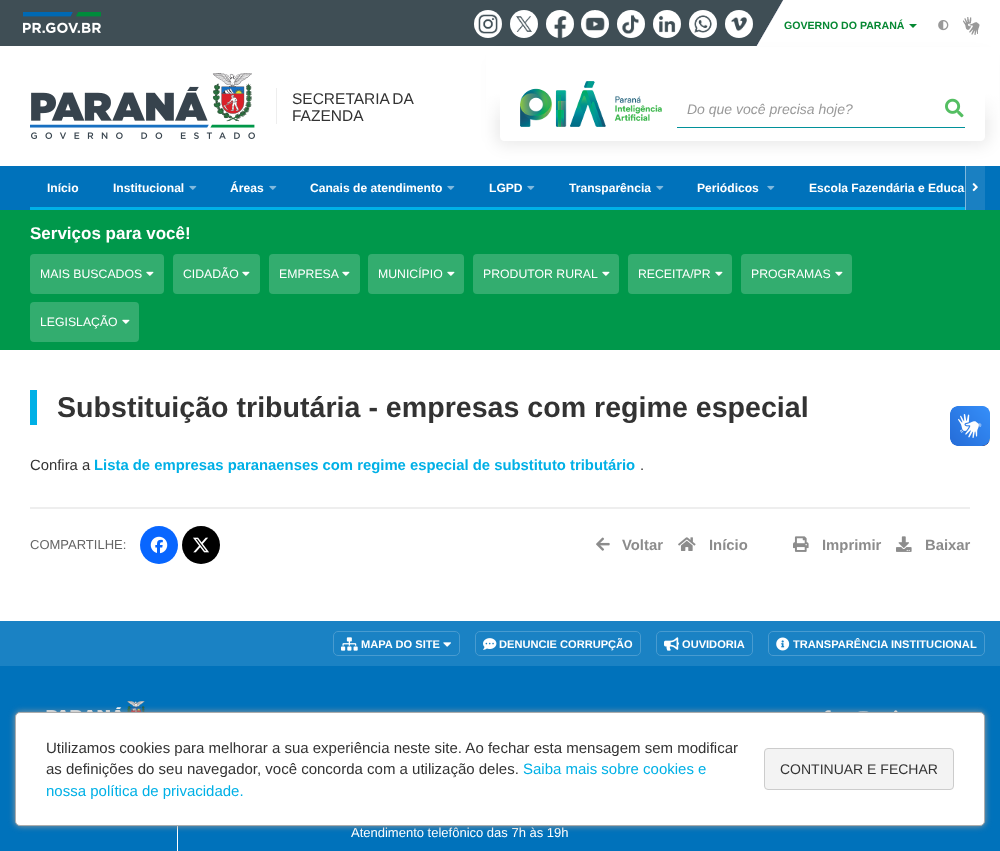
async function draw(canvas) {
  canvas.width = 1000;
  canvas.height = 851;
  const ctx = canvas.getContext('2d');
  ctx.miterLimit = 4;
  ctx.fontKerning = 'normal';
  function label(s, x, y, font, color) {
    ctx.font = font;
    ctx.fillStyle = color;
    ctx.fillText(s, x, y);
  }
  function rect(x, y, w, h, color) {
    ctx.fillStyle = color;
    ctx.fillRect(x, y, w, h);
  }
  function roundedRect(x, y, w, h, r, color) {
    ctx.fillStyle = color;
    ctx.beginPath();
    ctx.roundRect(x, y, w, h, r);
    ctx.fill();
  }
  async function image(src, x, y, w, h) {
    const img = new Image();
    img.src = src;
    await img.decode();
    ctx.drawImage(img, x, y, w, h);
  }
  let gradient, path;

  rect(0, 0, 1000, 851, '#0072bb');
  rect(0, 0, 756, 46, '#3f4e55');
  await image('assets/img1.png', 756, 0, 244, 46);
  await image('assets/img2.png', 23, 12, 78, 21);
  await image('assets/img3.png', 474, 10, 28, 28);
  await image('assets/img4.png', 510, 10, 28, 28);
  await image('assets/img5.png', 546, 10, 28, 28);
  await image('assets/img6.png', 581, 10, 28, 28);
  await image('assets/img7.png', 617, 10, 28, 28);
  await image('assets/img8.png', 653, 10, 28, 28);
  await image('assets/img9.png', 689, 10, 28, 28);
  await image('assets/img10.png', 725, 10, 28, 28);
  label('GOVERNO DO PARANÁ', 784, 29, 'bold 10.6px Liberation Sans', '#068833');
  path = new Path2D('M909 24H917L913 28Z');
  ctx.fill(path);
  await image('assets/img11.png', 938, 20, 11, 11);
  await image('assets/img12.png', 963, 17, 17, 18);
  rect(0, 46, 1000, 120, '#fff');
  await image('assets/img13.png', 30, 73, 225, 66);
  rect(276, 88, 1, 36, '#eee');
  ctx.wordSpacing = '-1px';
  label('SECRETARIA DA', 292, 104, '15.5px Liberation Sans', '#333');
  ctx.wordSpacing = '0px';
  label('FAZENDA', 292, 121, '15.5px Liberation Sans', '#333');
  ctx.save();
  path = new Path2D('M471 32H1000V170H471ZM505 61H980C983 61 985 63 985 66V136C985 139 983 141 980 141H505C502 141 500 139 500 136V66C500 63 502 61 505 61Z');
  ctx.clip(path, 'evenodd');
  ctx.fillStyle = '#00000014';
  ctx.filter = 'blur(7.5px)';
  ctx.beginPath();
  ctx.roundRect(495, 56, 495, 90, 10);
  ctx.fill();
  ctx.filter = 'none';
  ctx.restore();
  gradient = ctx.createLinearGradient(752, 46, 752, 126);
  gradient.addColorStop(0, '#fff');
  gradient.addColorStop(0.6, '#fff');
  gradient.addColorStop(1, '#ffffff00');
  ctx.fillStyle = gradient;
  ctx.fillRect(486, 47, 513, 73);
  await image('assets/img14.png', 520, 81, 142, 46);
  rect(677, 127, 288, 1, '#01919a');
  label('Do que você precisa hoje?', 687, 114, 'italic 14px Liberation Sans', '#999');
  await image('assets/img15.png', 945, 98, 19, 20);
  label('Início', 47, 192, 'bold 12.1px Liberation Sans', '#fff');
  rect(30, 207, 935, 3, '#00b0e6');
  label('Institucional', 113, 192, 'bold 12.1px Liberation Sans', '#fff');
  await image('assets/img16.png', 189, 185, 8, 5);
  label('Áreas', 230, 192, 'bold 12.1px Liberation Sans', '#fff');
  await image('assets/img16.png', 269, 185, 8, 5);
  label('Canais de atendimento', 310, 192, 'bold 12.1px Liberation Sans', '#fff');
  await image('assets/img16.png', 447, 185, 8, 5);
  label('LGPD', 489, 192, 'bold 12.1px Liberation Sans', '#fff');
  await image('assets/img16.png', 527, 185, 8, 5);
  label('Transparência', 569, 192, 'bold 12.1px Liberation Sans', '#fff');
  await image('assets/img16.png', 656, 185, 8, 5);
  label('Periódicos', 697, 192, 'bold 12.1px Liberation Sans', '#fff');
  await image('assets/img16.png', 767, 185, 8, 5);
  label('Escola Fazendária e Educa', 809, 192, 'bold 12.1px Liberation Sans', '#fff');
  rect(965, 166, 1, 44, '#80b8dd');
  rect(966, 166, 19, 44, '#1a80c2');
  await image('assets/img17.png', 972, 183, 6, 9);
  rect(0, 210, 1000, 140, '#00984b');
  label('Serviços para você!', 30, 239, 'bold 17px Liberation Sans', '#fff');
  roundedRect(30, 254, 134, 40, 4, '#33ad6f');
  label('MAIS BUSCADOS', 40, 278, '12.25px Liberation Sans', '#fff');
  await image('assets/img18.png', 146, 271, 8, 5);
  roundedRect(173, 254, 87, 40, 4, '#33ad6f');
  label('CIDADÃO', 183, 278, '12.25px Liberation Sans', '#fff');
  await image('assets/img18.png', 242, 271, 8, 5);
  roundedRect(269, 254, 91, 40, 4, '#33ad6f');
  label('EMPRESA', 279, 278, '12.25px Liberation Sans', '#fff');
  await image('assets/img18.png', 342, 271, 8, 5);
  roundedRect(368, 254, 96, 40, 4, '#33ad6f');
  label('MUNICÍPIO', 378, 278, '12.25px Liberation Sans', '#fff');
  await image('assets/img18.png', 447, 271, 8, 5);
  roundedRect(473, 254, 146, 40, 4, '#33ad6f');
  label('PRODUTOR RURAL', 483, 278, '12.25px Liberation Sans', '#fff');
  await image('assets/img18.png', 602, 271, 8, 5);
  roundedRect(628, 254, 104, 40, 4, '#33ad6f');
  label('RECEITA/PR', 638, 278, '12.25px Liberation Sans', '#fff');
  await image('assets/img18.png', 715, 271, 8, 5);
  roundedRect(741, 254, 111, 40, 4, '#33ad6f');
  label('PROGRAMAS', 751, 278, '12.25px Liberation Sans', '#fff');
  await image('assets/img18.png', 835, 271, 8, 5);
  roundedRect(30, 302, 109, 40, 4, '#33ad6f');
  label('LEGISLAÇÃO', 40, 326, '12.25px Liberation Sans', '#fff');
  await image('assets/img18.png', 122, 319, 8, 5);
  rect(0, 350, 1000, 271, '#fff');
  rect(30, 390, 7, 35, '#00b0e6');
  label('Substituição tributária - empresas com regime especial', 57, 417, 'bold 28.6px Liberation Sans', '#333');
  label('Confira a', 30, 470, '14.85px Liberation Sans', '#333');
  label('Lista de empresas paranaenses com regime especial de substituto tributário', 94, 470, 'bold 14.85px Liberation Sans', '#00b0e6');
  label('.', 640, 470, '14.85px Liberation Sans', '#333');
  rect(30, 507, 940, 2, '#eee');
  label('COMPARTILHE:', 30, 549, '13px Liberation Sans', '#656565');
  ctx.fillStyle = '#0866ff';
  ctx.beginPath();
  ctx.arc(159, 545, 19, 0, 2 * Math.PI);
  ctx.fill();
  await image('assets/img19.png', 150, 536, 18, 18);
  ctx.fillStyle = '#000';
  ctx.beginPath();
  ctx.arc(201, 545, 19, 0, 2 * Math.PI);
  ctx.fill();
  await image('assets/img20.png', 193, 537, 16, 16);
  await image('assets/img21.png', 596, 537, 14, 14);
  label('Voltar', 622, 550, 'bold 14.85px Liberation Sans', '#8c8c8c');
  await image('assets/img22.png', 678, 537, 18, 14);
  label('Início', 709, 550, 'bold 14.85px Liberation Sans', '#8c8c8c');
  await image('assets/img23.png', 793, 536, 16, 16);
  label('Imprimir', 822, 550, 'bold 14.85px Liberation Sans', '#8c8c8c');
  await image('assets/img24.png', 896, 536, 16, 16);
  label('Baixar', 925, 550, 'bold 14.85px Liberation Sans', '#8c8c8c');
  await image('assets/img25.png', 950, 406, 40, 40);
  await image('assets/img26.png', 950, 406, 40, 40);
  rect(0, 621, 1000, 45, '#1a82c4');
  ctx.beginPath();
  ctx.roundRect(333.5, 631.5, 126, 24, 4.5);
  ctx.strokeStyle = '#489bd0';
  ctx.stroke();
  await image('assets/img27.png', 341, 637, 17, 14);
  label('MAPA DO SITE', 361, 648, 'bold 11.1px Liberation Sans', '#fff');
  await image('assets/img28.png', 443, 642, 8, 5);
  ctx.beginPath();
  ctx.roundRect(475.5, 631.5, 165, 24, 4.5);
  ctx.stroke();
  await image('assets/img29.png', 483, 638, 14, 12);
  label('DENUNCIE CORRUPÇÃO', 499, 648, 'bold 11.1px Liberation Sans', '#fff');
  ctx.beginPath();
  ctx.roundRect(656.5, 631.5, 96, 24, 4.5);
  ctx.stroke();
  await image('assets/img30.png', 664, 637, 15, 14);
  label('OUVIDORIA', 682, 648, 'bold 11.1px Liberation Sans', '#fff');
  ctx.beginPath();
  ctx.roundRect(768.5, 631.5, 216, 24, 4.5);
  ctx.stroke();
  await image('assets/img31.png', 776, 637, 14, 14);
  label('TRANSPARÊNCIA INSTITUCIONAL', 793, 648, 'bold 11.1px Liberation Sans', '#fff');
  await image('assets/img32.png', 46, 701, 99, 11);
  await image('assets/img33.png', 825, 710, 6, 2);
  await image('assets/img34.png', 858, 711, 11, 1);
  await image('assets/img35.png', 894, 710, 4, 2);
  rect(177, 826, 1, 25, '#fff');
  label('Atendimento telefônico das 7h às 19h', 351, 837, '13px Liberation Sans', '#fff');
  ctx.fillStyle = '#999';
  ctx.filter = 'blur(3px)';
  ctx.beginPath();
  ctx.roundRect(15, 712, 970, 114, 5);
  ctx.fill();
  ctx.filter = 'none';
  ctx.fillStyle = '#fff';
  ctx.beginPath();
  ctx.roundRect(15.5, 712.5, 969, 113, 4.5);
  ctx.fill();
  ctx.strokeStyle = '#adadad';
  ctx.stroke();
  label('Utilizamos cookies para melhorar a sua experiência neste site. Ao fechar esta mensagem sem modificar', 46, 753, '15px Liberation Sans', '#333');
  label('as definições do seu navegador, você concorda com a utilização deles.', 46, 774, '15px Liberation Sans', '#333');
  label('Saiba mais sobre cookies e', 523, 774, '15px Liberation Sans', '#00b0e6');
  label('nossa política de privacidade.', 46, 796, '15px Liberation Sans', '#00b0e6');
  ctx.fillStyle = '#f3f3f3';
  ctx.beginPath();
  ctx.roundRect(764.5, 748.5, 189, 41, 3.5);
  ctx.fill();
  ctx.strokeStyle = '#ccc';
  ctx.stroke();
  label('CONTINUAR E FECHAR', 780, 774, '14px Liberation Sans', '#333');
}

draw(document.querySelector('canvas'));
